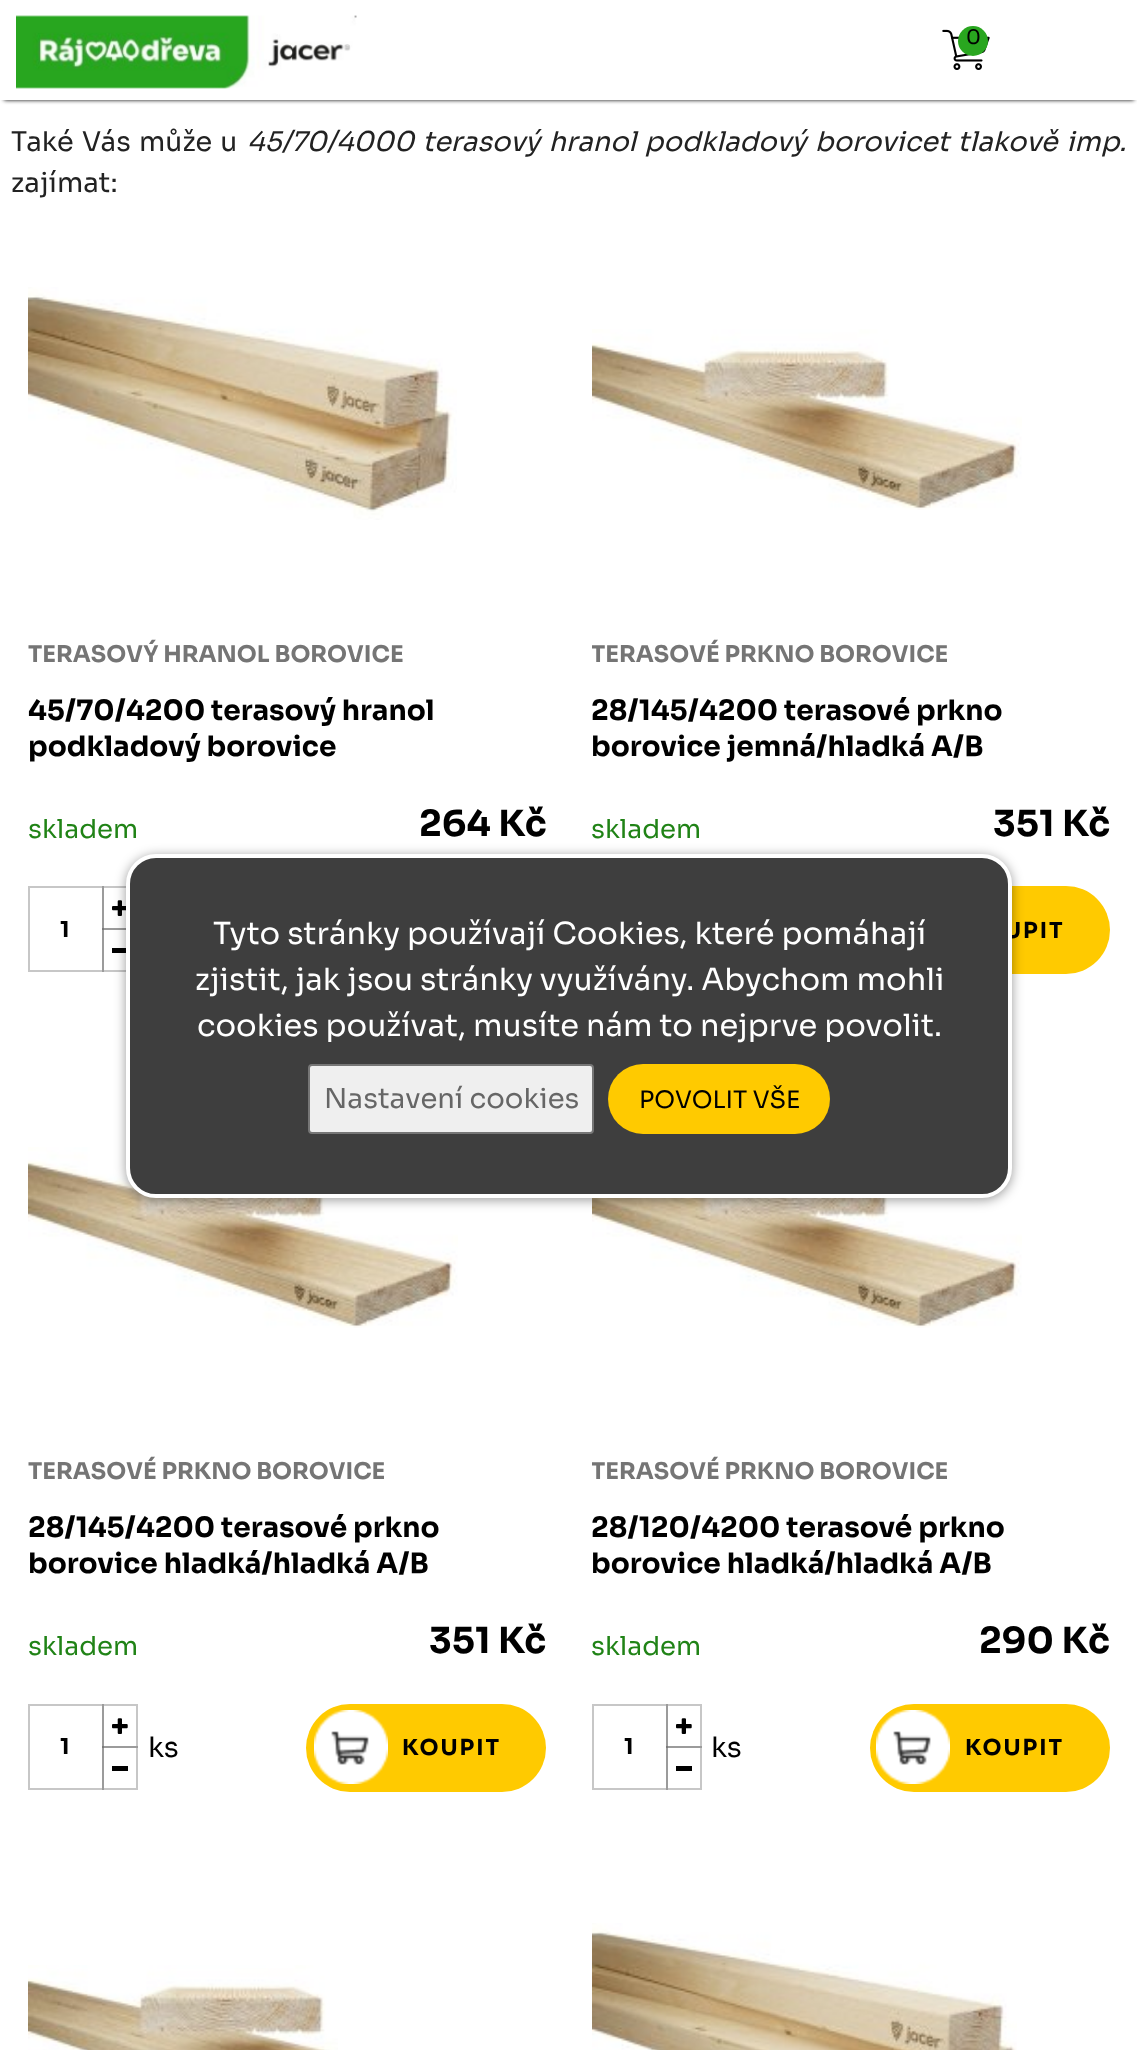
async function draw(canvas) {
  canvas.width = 1137;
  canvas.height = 2050;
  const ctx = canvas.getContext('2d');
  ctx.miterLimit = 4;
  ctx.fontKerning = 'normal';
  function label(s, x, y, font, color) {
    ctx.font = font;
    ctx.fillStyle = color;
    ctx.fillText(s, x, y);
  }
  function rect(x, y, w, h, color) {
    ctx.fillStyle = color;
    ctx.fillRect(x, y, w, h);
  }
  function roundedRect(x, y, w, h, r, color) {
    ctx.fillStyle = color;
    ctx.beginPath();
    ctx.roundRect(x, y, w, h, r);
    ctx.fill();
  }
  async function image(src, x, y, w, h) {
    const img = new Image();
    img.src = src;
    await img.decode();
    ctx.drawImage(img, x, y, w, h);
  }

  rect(0, 0, 1137, 2050, '#fff');
  ctx.fillStyle = '#000';
  ctx.filter = 'blur(2px)';
  ctx.beginPath();
  ctx.rect(4, 8, 1130, 92);
  ctx.fill();
  ctx.filter = 'none';
  rect(0, 3, 1137, 97, '#fff');
  await image('assets/img1.png', 16, 15, 341, 74);
  await image('assets/img2.png', 942, 29, 48, 41);
  ctx.fillStyle = '#29a61f';
  ctx.beginPath();
  ctx.arc(973, 41, 15, 0, 2 * Math.PI);
  ctx.fill();
  label('0', 966, 44, '20px Sora', '#000');
  ctx.wordSpacing = '2px';
  label('Také Vás může u', 11, 151, '27.2px Sora', '#222');
  ctx.wordSpacing = '2.25px';
  label('45/70/4000 terasový hranol podkladový borovicet tlakově imp.', 247, 151, 'italic 27.2px Sora', '#222');
  ctx.wordSpacing = '0px';
  label('zajímat:', 11, 192, '27.2px Sora', '#222');
  await image('assets/img3.png', 28, 287, 429, 233);
  label('TERASOVÝ HRANOL BOROVICE', 28, 662, 'bold 23.1px Sora', '#757575');
  label('45/70/4200 terasový hranol', 28, 720, 'bold 28px Sora', '#000');
  label('podkladový borovice', 28, 756, 'bold 28px Sora', '#000');
  label('skladem', 28, 838, '26px Sora', '#208316');
  label('264 Kč', 419, 836, 'bold 36px Sora', '#000');
  ctx.strokeStyle = '#c7c7c7';
  ctx.lineWidth = 2;
  ctx.strokeRect(29, 887, 74, 84);
  ctx.letterSpacing = '2px';
  label('1', 60, 937, 'bold 22px Sora', '#000');
  ctx.strokeStyle = '#00000038';
  ctx.strokeRect(103, 887, 34, 42);
  await image('assets/img4.png', 112, 900, 14, 16);
  ctx.strokeRect(103, 929, 34, 42);
  rect(112, 948, 16, 5, '#000');
  await image('assets/img5.png', 592, 329, 430, 181);
  ctx.save();
  ctx.beginPath();
  ctx.rect(592, 638, 518, 40);
  ctx.clip();
  ctx.letterSpacing = '0px';
  label('TERASOVÉ PRKNO BOROVICE', 591, 662, 'bold 23.1px Sora', '#757575');
  ctx.restore();
  ctx.letterSpacing = '0px';
  label('28/145/4200 terasové prkno', 591, 720, 'bold 28px Sora', '#000');
  label('borovice jemná/hladká A/B', 591, 756, 'bold 28px Sora', '#000');
  label('skladem', 591, 838, '26px Sora', '#208316');
  label('351 Kč', 993, 836, 'bold 36px Sora', '#000');
  roundedRect(870, 886, 240, 88, 44, '#ffca00');
  ctx.letterSpacing = '2px';
  label('UPIT', 1004, 938, 'bold 22px Sora', '#000');
  await image('assets/img6.png', 28, 1147, 430, 181);
  ctx.letterSpacing = '0px';
  label('TERASOVÉ PRKNO BOROVICE', 28, 1479, 'bold 23.1px Sora', '#757575');
  label('28/145/4200 terasové prkno', 28, 1537, 'bold 28px Sora', '#000');
  label('borovice hladká/hladká A/B', 28, 1573, 'bold 28px Sora', '#000');
  label('skladem', 28, 1655, '26px Sora', '#208316');
  label('351 Kč', 429, 1653, 'bold 36px Sora', '#000');
  ctx.strokeStyle = '#c7c7c7';
  ctx.strokeRect(29, 1705, 74, 84);
  ctx.letterSpacing = '2px';
  label('1', 60, 1754, 'bold 22px Sora', '#000');
  ctx.strokeStyle = '#00000038';
  ctx.strokeRect(103, 1705, 34, 42);
  await image('assets/img7.png', 112, 1718, 16, 16);
  ctx.letterSpacing = '0px';
  label('ks', 148, 1757, '28px Sora', '#000');
  ctx.strokeRect(103, 1747, 34, 42);
  rect(112, 1766, 16, 5, '#000');
  roundedRect(306, 1704, 240, 88, 44, '#ffca00');
  await image('assets/img8.png', 314, 1710, 74, 74);
  ctx.letterSpacing = '2px';
  label('KOUPIT', 402, 1755, 'bold 22px Sora', '#000');
  await image('assets/img5.png', 592, 1147, 430, 181);
  ctx.save();
  ctx.beginPath();
  ctx.rect(592, 1456, 518, 40);
  ctx.clip();
  ctx.letterSpacing = '0px';
  label('TERASOVÉ PRKNO BOROVICE', 591, 1479, 'bold 23.1px Sora', '#757575');
  ctx.restore();
  ctx.letterSpacing = '0px';
  label('28/120/4200 terasové prkno', 591, 1537, 'bold 28px Sora', '#000');
  label('borovice hladká/hladká A/B', 591, 1573, 'bold 28px Sora', '#000');
  label('skladem', 591, 1655, '26px Sora', '#208316');
  label('290 Kč', 979, 1653, 'bold 36px Sora', '#000');
  ctx.strokeStyle = '#c7c7c7';
  ctx.strokeRect(593, 1705, 74, 84);
  ctx.letterSpacing = '2px';
  label('1', 624, 1754, 'bold 22px Sora', '#000');
  ctx.strokeStyle = '#00000038';
  ctx.strokeRect(667, 1705, 34, 42);
  await image('assets/img7.png', 676, 1718, 16, 16);
  ctx.letterSpacing = '0px';
  label('ks', 711, 1757, '28px Sora', '#000');
  ctx.strokeRect(667, 1747, 34, 42);
  rect(676, 1766, 16, 5, '#000');
  roundedRect(870, 1704, 240, 88, 44, '#ffca00');
  await image('assets/img9.png', 876, 1710, 74, 74);
  ctx.letterSpacing = '2px';
  label('KOUPIT', 965, 1755, 'bold 22px Sora', '#000');
  await image('assets/img10.png', 28, 1965, 310, 85);
  await image('assets/img11.png', 592, 1923, 425, 127);
  ctx.fillStyle = '#00000066';
  ctx.filter = 'blur(6px)';
  ctx.beginPath();
  ctx.roundRect(126, 856, 886, 344, 30);
  ctx.fill();
  ctx.filter = 'none';
  ctx.fillStyle = '#3e3e3e';
  ctx.beginPath();
  ctx.roundRect(128, 856, 882, 340, 28);
  ctx.fill();
  ctx.strokeStyle = '#fff';
  ctx.lineWidth = 4;
  ctx.stroke();
  ctx.letterSpacing = '0px';
  label('Tyto stránky používají Cookies, které pomáhají', 213, 944, '30.5px Sora', '#fff');
  label('zjistit, jak jsou stránky využívány. Abychom mohli', 195, 990, '30.5px Sora', '#fff');
  label('cookies používat, musíte nám to nejprve povolit.', 197, 1036, '30.5px Sora', '#fff');
  ctx.fillStyle = '#efefef';
  ctx.beginPath();
  ctx.roundRect(309, 1065, 284, 68, 3);
  ctx.fill();
  ctx.strokeStyle = '#767676';
  ctx.lineWidth = 2;
  ctx.stroke();
  label('Nastavení cookies', 324, 1108, '27.5px Sora', '#666');
  roundedRect(608, 1064, 222, 70, 35, '#ffca00');
  label('POVOLIT VŠE', 639, 1108, '24px Sora', '#000');
}

draw(document.querySelector('canvas'));
